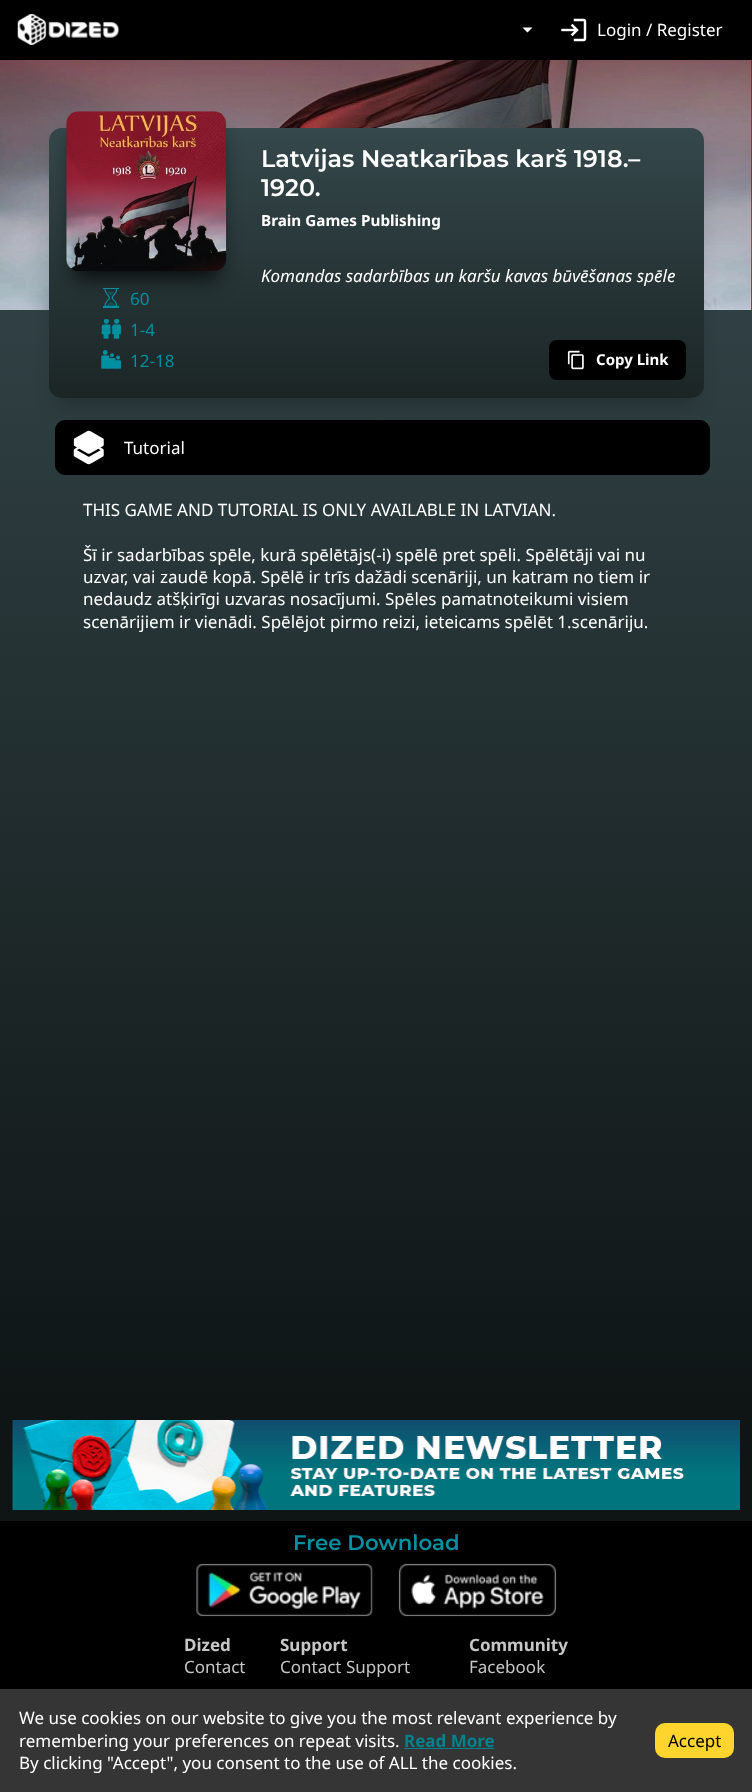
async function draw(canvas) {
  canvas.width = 752;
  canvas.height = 1792;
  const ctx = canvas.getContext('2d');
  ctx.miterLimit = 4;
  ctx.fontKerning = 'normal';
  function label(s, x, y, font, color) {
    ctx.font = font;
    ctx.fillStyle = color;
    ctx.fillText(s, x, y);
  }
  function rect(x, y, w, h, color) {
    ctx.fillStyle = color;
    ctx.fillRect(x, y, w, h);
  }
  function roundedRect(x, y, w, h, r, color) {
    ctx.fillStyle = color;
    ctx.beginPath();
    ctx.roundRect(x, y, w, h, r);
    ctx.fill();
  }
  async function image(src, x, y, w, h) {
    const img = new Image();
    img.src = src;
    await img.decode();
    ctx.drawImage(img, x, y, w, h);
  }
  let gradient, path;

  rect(0, 0, 752, 1792, '#fff');
  gradient = ctx.createLinearGradient(376, 0, 376, 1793);
  gradient.addColorStop(0, '#374a4e');
  gradient.addColorStop(0.2, '#304042');
  gradient.addColorStop(0.6, '#0f1515');
  ctx.fillStyle = gradient;
  ctx.fillRect(0, 1409, 752, 112);
  rect(0, 0, 752, 60, '#000');
  await image('assets/img1.png', 17, 13, 102, 32);
  ctx.fillStyle = '#fff';
  path = new Path2D('M522.5 27.5H532.5L527.5 32.5Z');
  ctx.fill(path);
  await image('assets/img2.png', 561, 18, 26, 24);
  label('Login / Register', 597, 36, '17px Noto Sans', '#fff');
  gradient = ctx.createLinearGradient(376, 60, 376, 1409);
  gradient.addColorStop(0, '#374a4e');
  gradient.addColorStop(1, '#0f1515');
  ctx.fillStyle = gradient;
  ctx.fillRect(0, 310, 752, 1099);
  await image('assets/img3.png', 0, 60, 752, 250);
  ctx.fillStyle = '#00000033';
  ctx.filter = 'blur(10px)';
  ctx.beginPath();
  ctx.roundRect(56, 150, 640, 255, 5);
  ctx.fill();
  ctx.filter = 'none';
  gradient = ctx.createLinearGradient(376, 127, 376, 398);
  gradient.addColorStop(0, '#35484b');
  gradient.addColorStop(1, '#1b2526');
  ctx.fillStyle = gradient;
  ctx.beginPath();
  ctx.roundRect(49, 128, 655, 270, 13);
  ctx.fill();
  ctx.fillStyle = '#000000bf';
  ctx.filter = 'blur(10px)';
  ctx.beginPath();
  ctx.roundRect(74, 134, 145, 145, 5);
  ctx.fill();
  ctx.filter = 'none';
  await image('assets/img4.png', 66, 111, 161, 160);
  await image('assets/img5.png', 103, 288, 16, 20);
  label('60', 130, 305, '17px Noto Sans', '#0090a1');
  await image('assets/img6.png', 101, 319, 20, 20);
  label('1-4', 130, 336, '17px Noto Sans', '#0090a1');
  await image('assets/img7.png', 101, 350, 20, 19);
  label('12-18', 130, 367, '17px Noto Sans', '#0090a1');
  label('Latvijas Neatkarības karš 1918.–', 261, 167, '100 23.9px Montserrat', '#fff');
  label('1920.', 261, 196, '100 23.9px Montserrat', '#fff');
  label('Brain Games Publishing', 261, 226, 'bold 15.25px Noto Sans', '#fff');
  label('Komandas sadarbības un karšu kavas būvēšanas spēle', 261, 282, 'italic 17px Noto Sans', '#fff');
  roundedRect(549, 340, 137, 40, 8, '#000');
  await image('assets/img8.png', 567, 350, 17, 20);
  label('Copy Link', 596, 365, 'bold 15px Noto Sans', '#fff');
  ctx.fillStyle = '#000';
  ctx.beginPath();
  ctx.roundRect(55.5, 420.5, 654, 54, 9.5);
  ctx.fill();
  ctx.strokeStyle = '#000';
  ctx.stroke();
  await image('assets/img9.png', 73, 430, 31, 35);
  label('Tutorial', 124, 454, '17px Noto Sans', '#fff');
  label('THIS GAME AND TUTORIAL IS ONLY AVAILABLE IN LATVIAN.', 83, 516, '17px Noto Sans', '#fff');
  label('Šī ir sadarbības spēle, kurā spēlētājs(-i) spēlē pret spēli. Spēlētāji vai nu', 83, 561, '17px Noto Sans', '#fff');
  label('uzvar, vai zaudē kopā. Spēlē ir trīs dažādi scenāriji, un katram no tiem ir', 83, 583, '17px Noto Sans', '#fff');
  label('nedaudz atšķirīgi uzvaras nosacījumi. Spēles pamatnoteikumi visiem', 83, 605, '17px Noto Sans', '#fff');
  label('scenārijiem ir vienādi. Spēlējot pirmo reizi, ieteicams spēlēt 1.scenāriju.', 83, 628, '17px Noto Sans', '#fff');
  await image('assets/img10.png', 12, 1420, 728, 90);
  rect(0, 1521, 752, 168, '#000');
  label('Free Download', 293, 1550, '100 21.25px Montserrat', '#0090a1');
  await image('assets/img11.png', 196, 1563, 177, 54);
  await image('assets/img12.png', 398, 1563, 159, 54);
  label('Dized', 184, 1651, 'bold 17px Noto Sans', '#c6c6c6');
  label('Contact', 184, 1673, '17px Noto Sans', '#c6c6c6');
  label('Support', 280, 1651, 'bold 17px Noto Sans', '#c6c6c6');
  label('Contact Support', 280, 1673, '17px Noto Sans', '#c6c6c6');
  label('Community', 469, 1651, 'bold 17px Noto Sans', '#c6c6c6');
  label('Facebook', 469, 1673, '17px Noto Sans', '#c6c6c6');
  rect(0, 1689, 752, 103, '#353535');
  label('We use cookies on our website to give you the most relevant experience by', 19, 1724, '17px Noto Sans', '#fff');
  label('remembering your preferences on repeat visits.', 19, 1747, '17px Noto Sans', '#fff');
  label('Read More', 404, 1747, 'bold 17px Noto Sans', '#00838f');
  rect(404, 1748, 90, 1, '#00838f');
  label('By clicking "Accept", you consent to the use of ALL the cookies.', 19, 1769, '17px Noto Sans', '#fff');
  roundedRect(655, 1723, 79, 35, 10, '#ffd42d');
  label('Accept', 668, 1747, '17px Noto Sans', '#000');
}

draw(document.querySelector('canvas'));
